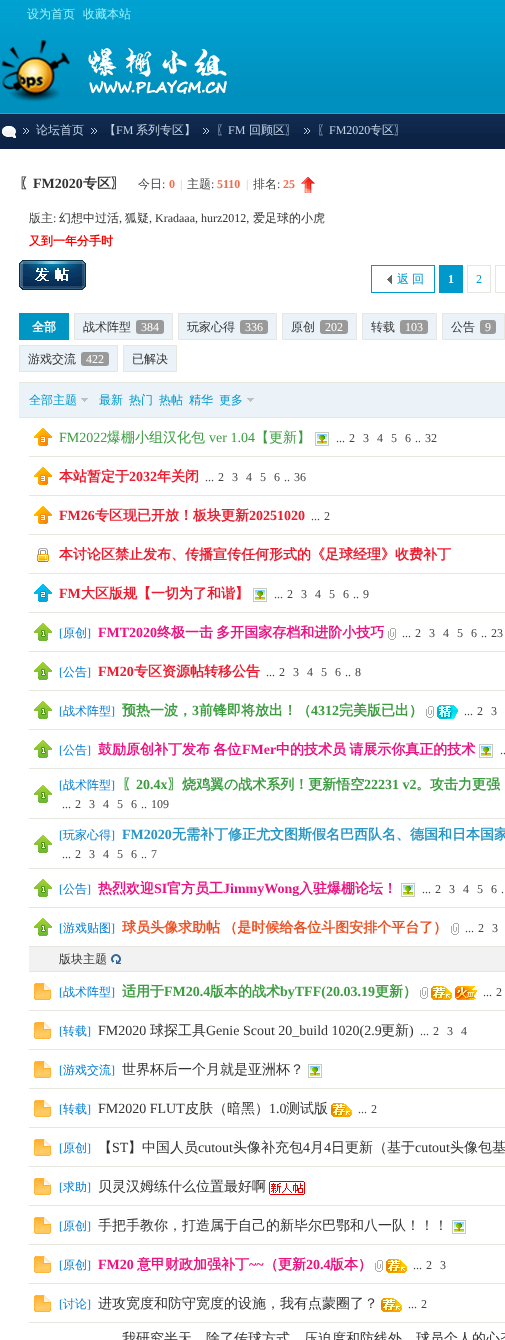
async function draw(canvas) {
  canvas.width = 505;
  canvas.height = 1340;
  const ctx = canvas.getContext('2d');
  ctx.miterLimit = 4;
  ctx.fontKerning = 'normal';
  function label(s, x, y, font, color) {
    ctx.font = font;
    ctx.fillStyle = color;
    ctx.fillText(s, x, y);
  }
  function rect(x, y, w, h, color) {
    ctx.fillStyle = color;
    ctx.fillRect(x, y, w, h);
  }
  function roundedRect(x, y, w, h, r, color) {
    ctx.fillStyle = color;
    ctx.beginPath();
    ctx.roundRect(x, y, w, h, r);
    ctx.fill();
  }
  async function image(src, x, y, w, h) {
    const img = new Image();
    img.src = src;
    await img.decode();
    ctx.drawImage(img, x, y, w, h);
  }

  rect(0, 0, 505, 1340, '#0d2345');
  await image('assets/img1.png', 0, 114, 505, 19);
  await image('assets/img2.png', 0, 0, 505, 114);
  label('设为首页', 27, 18, '500 12px WenQuanYi Zen Hei', '#97f2ff');
  label('收藏本站', 83, 18, '500 12px WenQuanYi Zen Hei', '#97f2ff');
  await image('assets/img3.png', 2, 40, 225, 62);
  await image('assets/img4.png', 2, 126, 14, 12);
  await image('assets/img5.png', 23, 128, 6, 6);
  label('论坛首页', 36, 134, '500 12px WenQuanYi Zen Hei', '#c3d3e4');
  await image('assets/img5.png', 91, 128, 6, 6);
  label('【', 104, 134, '500 12px WenQuanYi Zen Hei', '#c3d3e4');
  label('FM', 116, 134, '12px Liberation Serif', '#c3d3e4');
  label('系列专区】', 136, 134, '500 12px WenQuanYi Zen Hei', '#c3d3e4');
  await image('assets/img5.png', 203, 128, 6, 6);
  label('〖', 216, 134, '500 12px WenQuanYi Zen Hei', '#c3d3e4');
  label('FM', 228, 134, '12px Liberation Serif', '#c3d3e4');
  label('回顾区〗', 249, 134, '500 12px WenQuanYi Zen Hei', '#c3d3e4');
  await image('assets/img5.png', 304, 128, 6, 6);
  label('〖', 317, 134, '500 12px WenQuanYi Zen Hei', '#c3d3e4');
  label('FM2020', 329, 134, '12px Liberation Serif', '#c3d3e4');
  label('专区〗', 370, 134, '500 12px WenQuanYi Zen Hei', '#c3d3e4');
  rect(0, 149, 505, 1191, '#fff');
  label('〖', 19, 188, 'bold 14px WenQuanYi Zen Hei', '#333');
  label('FM2020', 33, 188, 'bold 14px Liberation Serif', '#333');
  label('专区〗', 83, 188, 'bold 14px WenQuanYi Zen Hei', '#333');
  label('今日', 138, 188, '500 12px WenQuanYi Zen Hei', '#444');
  label(':', 162, 188, '12px Liberation Serif', '#444');
  label('0', 169, 188, 'bold 12px Liberation Serif', '#f26c4f');
  label('|', 180, 188, '12px Liberation Serif', '#ccc');
  label('主题', 187, 188, '500 12px WenQuanYi Zen Hei', '#444');
  label(':', 211, 188, '12px Liberation Serif', '#444');
  label('5110', 217, 188, 'bold 12px Liberation Serif', '#f26c4f');
  label('|', 246, 188, '12px Liberation Serif', '#ccc');
  label('排名', 253, 188, '500 12px WenQuanYi Zen Hei', '#444');
  label(':', 277, 188, '12px Liberation Serif', '#444');
  label('25', 283, 188, 'bold 12px Liberation Serif', '#f26c4f');
  await image('assets/img6.png', 301, 177, 14, 16);
  label('版主', 29, 222, '500 12px WenQuanYi Zen Hei', '#444');
  label(':', 53, 222, '12px Liberation Serif', '#444');
  label('幻想中过活', 59, 222, '500 12px WenQuanYi Zen Hei', '#333');
  label(',', 119, 222, '12px Liberation Serif', '#333');
  label('狐疑', 125, 222, '500 12px WenQuanYi Zen Hei', '#333');
  label(', Kradaaa, hurz2012,', 149, 222, '12px Liberation Serif', '#333');
  label('爱足球的小虎', 253, 222, '500 12px WenQuanYi Zen Hei', '#333');
  label('又到一年分手时', 29, 245, 'bold 12px WenQuanYi Zen Hei', '#f00');
  await image('assets/img7.png', 19, 260, 67, 30);
  await image('assets/img8.png', 387, 275, 5, 9);
  ctx.strokeStyle = '#09c';
  ctx.strokeRect(371.5, 265.5, 63, 27);
  label('返', 397, 283, '500 12px WenQuanYi Zen Hei', '#09c');
  label('回', 412, 283, '500 12px WenQuanYi Zen Hei', '#09c');
  rect(439, 265, 24, 28, '#09c');
  label('1', 448, 283, 'bold 12px Liberation Serif', '#fff');
  ctx.strokeStyle = '#e6e7e1';
  ctx.strokeRect(467.5, 265.5, 23, 27);
  label('2', 476, 283, '12px Liberation Serif', '#09c');
  ctx.strokeRect(495.5, 265.5, 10, 27);
  rect(19, 313, 50, 27, '#0096c4');
  label('全部', 32, 331, 'bold 12px WenQuanYi Zen Hei', '#fff');
  ctx.fillStyle = '#ebf2f8';
  ctx.beginPath();
  ctx.rect(74.5, 313.5, 98, 26);
  ctx.fill();
  ctx.stroke();
  label('战术阵型', 83, 331, '500 12px WenQuanYi Zen Hei', '#333');
  roundedRect(136, 320, 28, 14, 3, '#999');
  label('384', 141, 331, '12px Liberation Serif', '#fff');
  ctx.fillStyle = '#ebf2f8';
  ctx.beginPath();
  ctx.rect(178.5, 313.5, 98, 26);
  ctx.fill();
  ctx.stroke();
  label('玩家心得', 187, 331, '500 12px WenQuanYi Zen Hei', '#333');
  roundedRect(240, 320, 28, 14, 3, '#999');
  label('336', 245, 331, '12px Liberation Serif', '#fff');
  ctx.fillStyle = '#ebf2f8';
  ctx.beginPath();
  ctx.rect(282.5, 313.5, 74, 26);
  ctx.fill();
  ctx.stroke();
  label('原创', 291, 331, '500 12px WenQuanYi Zen Hei', '#333');
  roundedRect(320, 320, 28, 14, 3, '#999');
  label('202', 325, 331, '12px Liberation Serif', '#fff');
  ctx.fillStyle = '#ebf2f8';
  ctx.beginPath();
  ctx.rect(362.5, 313.5, 74, 26);
  ctx.fill();
  ctx.stroke();
  label('转载', 371, 331, '500 12px WenQuanYi Zen Hei', '#333');
  roundedRect(400, 320, 28, 14, 3, '#999');
  label('103', 405, 331, '12px Liberation Serif', '#fff');
  ctx.fillStyle = '#ebf2f8';
  ctx.beginPath();
  ctx.rect(442.5, 313.5, 62, 26);
  ctx.fill();
  ctx.stroke();
  label('公告', 451, 331, '500 12px WenQuanYi Zen Hei', '#333');
  roundedRect(480, 320, 16, 14, 3, '#999');
  label('9', 485, 331, '12px Liberation Serif', '#fff');
  ctx.fillStyle = '#ebf2f8';
  ctx.beginPath();
  ctx.rect(19.5, 345.5, 98, 26);
  ctx.fill();
  ctx.stroke();
  label('游戏交流', 28, 363, '500 12px WenQuanYi Zen Hei', '#333');
  roundedRect(81, 352, 28, 14, 3, '#999');
  label('422', 86, 363, '12px Liberation Serif', '#fff');
  ctx.fillStyle = '#ebf2f8';
  ctx.beginPath();
  ctx.rect(123.5, 345.5, 53, 26);
  ctx.fill();
  ctx.stroke();
  label('已解决', 132, 363, '500 12px WenQuanYi Zen Hei', '#333');
  rect(19, 383, 486, 34, '#ebf2f8');
  rect(19, 382, 486, 1, '#e6e7e1');
  rect(19, 417, 486, 1, '#e6e7e1');
  label('全部主题', 29, 404, '500 12px WenQuanYi Zen Hei', '#09c');
  await image('assets/img9.png', 81, 398, 7, 4);
  label('最新', 99, 404, '500 12px WenQuanYi Zen Hei', '#09c');
  label('热门', 129, 404, '500 12px WenQuanYi Zen Hei', '#09c');
  label('热帖', 159, 404, '500 12px WenQuanYi Zen Hei', '#09c');
  label('精华', 189, 404, '500 12px WenQuanYi Zen Hei', '#09c');
  label('更多', 219, 404, '500 12px WenQuanYi Zen Hei', '#09c');
  await image('assets/img9.png', 247, 398, 7, 4);
  rect(29, 456, 476, 1, '#e6e7e1');
  await image('assets/img10.png', 34, 428, 18, 18);
  label('FM2022', 59, 442, '14px Liberation Serif', '#3c9d40');
  label('爆棚小组汉化包', 107, 442, '500 14px WenQuanYi Zen Hei', '#3c9d40');
  label('ver 1.04', 209, 442, '14px Liberation Serif', '#3c9d40');
  label('【更新】', 255, 442, '500 14px WenQuanYi Zen Hei', '#3c9d40');
  await image('assets/img11.png', 315, 432, 14, 14);
  label('...', 336, 442, '12px Liberation Serif', '#444');
  label('2', 349, 442, '12px Liberation Serif', '#444');
  label('3', 363, 442, '12px Liberation Serif', '#444');
  label('4', 377, 442, '12px Liberation Serif', '#444');
  label('5', 391, 442, '12px Liberation Serif', '#444');
  label('6', 405, 442, '12px Liberation Serif', '#444');
  label('..', 415, 442, '12px Liberation Serif', '#444');
  label('32', 425, 442, '12px Liberation Serif', '#444');
  rect(29, 495, 476, 1, '#e6e7e1');
  await image('assets/img10.png', 34, 467, 18, 18);
  label('本站暂定于', 59, 481, 'bold 14px WenQuanYi Zen Hei', '#ee1b2e');
  label('2032', 129, 481, 'bold 14px Liberation Serif', '#ee1b2e');
  label('年关闭', 157, 481, 'bold 14px WenQuanYi Zen Hei', '#ee1b2e');
  label('...', 205, 481, '12px Liberation Serif', '#444');
  label('2', 218, 481, '12px Liberation Serif', '#444');
  label('3', 232, 481, '12px Liberation Serif', '#444');
  label('4', 246, 481, '12px Liberation Serif', '#444');
  label('5', 260, 481, '12px Liberation Serif', '#444');
  label('6', 274, 481, '12px Liberation Serif', '#444');
  label('..', 284, 481, '12px Liberation Serif', '#444');
  label('36', 294, 481, '12px Liberation Serif', '#444');
  rect(29, 534, 476, 1, '#e6e7e1');
  await image('assets/img10.png', 34, 506, 18, 18);
  label('FM26', 59, 520, 'bold 14px Liberation Serif', '#ee1b2e');
  label('专区现已开放！板块更新', 95, 520, 'bold 14px WenQuanYi Zen Hei', '#ee1b2e');
  label('20251020', 249, 520, 'bold 14px Liberation Serif', '#ee1b2e');
  label('...', 311, 520, '12px Liberation Serif', '#444');
  label('2', 324, 520, '12px Liberation Serif', '#444');
  label('本讨论区禁止发布、传播宣传任何形式的《足球经理》收费补丁', 59, 559, 'bold 14px WenQuanYi Zen Hei', '#ee1b2e');
  rect(29, 573, 476, 1, '#e6e7e1');
  await image('assets/img12.png', 37, 548, 12, 14);
  rect(29, 612, 476, 1, '#e6e7e1');
  await image('assets/img13.png', 34, 584, 18, 18);
  label('FM', 59, 598, 'bold 14px Liberation Serif', '#ee1b2e');
  label('大区版规【一切为了和谐】', 81, 598, 'bold 14px WenQuanYi Zen Hei', '#ee1b2e');
  await image('assets/img11.png', 253, 588, 14, 14);
  label('...', 274, 598, '12px Liberation Serif', '#444');
  label('2', 287, 598, '12px Liberation Serif', '#444');
  label('3', 301, 598, '12px Liberation Serif', '#444');
  label('4', 315, 598, '12px Liberation Serif', '#444');
  label('5', 329, 598, '12px Liberation Serif', '#444');
  label('6', 343, 598, '12px Liberation Serif', '#444');
  label('..', 353, 598, '12px Liberation Serif', '#444');
  label('9', 363, 598, '12px Liberation Serif', '#444');
  rect(29, 651, 476, 1, '#e6e7e1');
  await image('assets/img14.png', 34, 623, 18, 18);
  label('[', 59, 637, '12px Liberation Serif', '#007cd5');
  label('原创', 63, 637, '500 12px WenQuanYi Zen Hei', '#007cd5');
  label(']', 87, 637, '12px Liberation Serif', '#007cd5');
  label('FMT2020', 98, 637, 'bold 14px Liberation Serif', '#ec1282');
  ctx.wordSpacing = '-1px';
  label('终极一击 多开国家存档和进阶小技巧', 157, 637, 'bold 14px WenQuanYi Zen Hei', '#ec1282');
  await image('assets/img15.png', 388, 628, 8, 12);
  ctx.wordSpacing = '0px';
  label('...', 402, 637, '12px Liberation Serif', '#444');
  label('2', 415, 637, '12px Liberation Serif', '#444');
  label('3', 429, 637, '12px Liberation Serif', '#444');
  label('4', 443, 637, '12px Liberation Serif', '#444');
  label('5', 457, 637, '12px Liberation Serif', '#444');
  label('6', 471, 637, '12px Liberation Serif', '#444');
  label('..', 481, 637, '12px Liberation Serif', '#444');
  label('23', 491, 637, '12px Liberation Serif', '#444');
  rect(29, 690, 476, 1, '#e6e7e1');
  await image('assets/img14.png', 34, 662, 18, 18);
  label('[', 59, 676, '12px Liberation Serif', '#007cd5');
  label('公告', 63, 676, '500 12px WenQuanYi Zen Hei', '#007cd5');
  label(']', 87, 676, '12px Liberation Serif', '#007cd5');
  label('FM20', 98, 676, 'bold 14px Liberation Serif', '#ee1b2e');
  label('专区资源帖转移公告', 134, 676, 'bold 14px WenQuanYi Zen Hei', '#ee1b2e');
  label('...', 266, 676, '12px Liberation Serif', '#444');
  label('2', 279, 676, '12px Liberation Serif', '#444');
  label('3', 293, 676, '12px Liberation Serif', '#444');
  label('4', 307, 676, '12px Liberation Serif', '#444');
  label('5', 321, 676, '12px Liberation Serif', '#444');
  label('6', 335, 676, '12px Liberation Serif', '#444');
  label('..', 345, 676, '12px Liberation Serif', '#444');
  label('8', 355, 676, '12px Liberation Serif', '#444');
  rect(29, 729, 476, 1, '#e6e7e1');
  await image('assets/img14.png', 34, 701, 18, 18);
  label('[', 59, 715, '12px Liberation Serif', '#007cd5');
  label('战术阵型', 63, 715, '500 12px WenQuanYi Zen Hei', '#007cd5');
  label(']', 111, 715, '12px Liberation Serif', '#007cd5');
  label('预热一波，', 122, 715, 'bold 14px WenQuanYi Zen Hei', '#3c9d40');
  label('3', 192, 715, 'bold 14px Liberation Serif', '#3c9d40');
  label('前锋即将放出！（', 199, 715, 'bold 14px WenQuanYi Zen Hei', '#3c9d40');
  label('4312', 311, 715, 'bold 14px Liberation Serif', '#3c9d40');
  label('完美版已出）', 339, 715, 'bold 14px WenQuanYi Zen Hei', '#3c9d40');
  await image('assets/img15.png', 426, 706, 8, 12);
  await image('assets/img16.png', 437, 705, 21, 14);
  label('...', 464, 715, '12px Liberation Serif', '#444');
  label('2', 477, 715, '12px Liberation Serif', '#444');
  label('3', 491, 715, '12px Liberation Serif', '#444');
  rect(29, 768, 476, 1, '#e6e7e1');
  await image('assets/img14.png', 34, 740, 18, 18);
  label('[', 59, 754, '12px Liberation Serif', '#007cd5');
  label('公告', 63, 754, '500 12px WenQuanYi Zen Hei', '#007cd5');
  label(']', 87, 754, '12px Liberation Serif', '#007cd5');
  ctx.wordSpacing = '-1px';
  label('鼓励原创补丁发布 各位', 98, 754, 'bold 14px WenQuanYi Zen Hei', '#ec1282');
  ctx.wordSpacing = '0px';
  label('FMer', 242, 754, 'bold 14px Liberation Serif', '#ec1282');
  ctx.wordSpacing = '-1px';
  label('中的技术员 请展示你真正的技术', 276, 754, 'bold 14px WenQuanYi Zen Hei', '#ec1282');
  await image('assets/img11.png', 479, 744, 14, 14);
  ctx.wordSpacing = '0px';
  label('..', 500, 754, '12px Liberation Serif', '#444');
  label('[', 59, 789, '12px Liberation Serif', '#007cd5');
  label('战术阵型', 63, 789, '500 12px WenQuanYi Zen Hei', '#007cd5');
  label(']', 111, 789, '12px Liberation Serif', '#007cd5');
  label('〖', 122, 789, 'bold 14px WenQuanYi Zen Hei', '#3c9d40');
  label('20.4x', 136, 789, 'bold 14px Liberation Serif', '#3c9d40');
  label('〗烧鸡翼の战术系列！更新悟空', 168, 789, 'bold 14px WenQuanYi Zen Hei', '#3c9d40');
  label('22231 v2', 364, 789, 'bold 14px Liberation Serif', '#3c9d40');
  label('。攻击力更强', 416, 789, 'bold 14px WenQuanYi Zen Hei', '#3c9d40');
  label('...', 62, 808, '12px Liberation Serif', '#444');
  label('2', 75, 808, '12px Liberation Serif', '#444');
  label('3', 89, 808, '12px Liberation Serif', '#444');
  label('4', 103, 808, '12px Liberation Serif', '#444');
  label('5', 117, 808, '12px Liberation Serif', '#444');
  label('6', 131, 808, '12px Liberation Serif', '#444');
  label('..', 141, 808, '12px Liberation Serif', '#444');
  label('109', 151, 808, '12px Liberation Serif', '#444');
  rect(29, 818, 476, 1, '#e6e7e1');
  await image('assets/img14.png', 34, 785, 18, 18);
  label('[', 59, 839, '12px Liberation Serif', '#007cd5');
  label('玩家心得', 63, 839, '500 12px WenQuanYi Zen Hei', '#007cd5');
  label(']', 111, 839, '12px Liberation Serif', '#007cd5');
  label('FM2020', 122, 839, 'bold 14px Liberation Serif', '#2897c5');
  label('无需补丁修正尤文图斯假名巴西队名、德国和日本国家', 172, 839, 'bold 14px WenQuanYi Zen Hei', '#2897c5');
  label('...', 62, 858, '12px Liberation Serif', '#444');
  label('2', 75, 858, '12px Liberation Serif', '#444');
  label('3', 89, 858, '12px Liberation Serif', '#444');
  label('4', 103, 858, '12px Liberation Serif', '#444');
  label('5', 117, 858, '12px Liberation Serif', '#444');
  label('6', 131, 858, '12px Liberation Serif', '#444');
  label('..', 141, 858, '12px Liberation Serif', '#444');
  label('7', 151, 858, '12px Liberation Serif', '#444');
  rect(29, 868, 476, 1, '#e6e7e1');
  await image('assets/img14.png', 34, 835, 18, 18);
  rect(29, 907, 476, 1, '#e6e7e1');
  await image('assets/img14.png', 34, 879, 18, 18);
  label('[', 59, 893, '12px Liberation Serif', '#007cd5');
  label('公告', 63, 893, '500 12px WenQuanYi Zen Hei', '#007cd5');
  label(']', 87, 893, '12px Liberation Serif', '#007cd5');
  label('热烈欢迎', 98, 893, 'bold 14px WenQuanYi Zen Hei', '#ec1282');
  label('SI', 154, 893, 'bold 14px Liberation Serif', '#ec1282');
  label('官方员工', 167, 893, 'bold 14px WenQuanYi Zen Hei', '#ec1282');
  label('JimmyWong', 223, 893, 'bold 14px Liberation Serif', '#ec1282');
  label('入驻爆棚论坛！', 299, 893, 'bold 14px WenQuanYi Zen Hei', '#ec1282');
  await image('assets/img11.png', 401, 883, 14, 14);
  label('...', 422, 893, '12px Liberation Serif', '#444');
  label('2', 435, 893, '12px Liberation Serif', '#444');
  label('3', 449, 893, '12px Liberation Serif', '#444');
  label('4', 463, 893, '12px Liberation Serif', '#444');
  label('5', 477, 893, '12px Liberation Serif', '#444');
  label('6', 491, 893, '12px Liberation Serif', '#444');
  label('.', 501, 893, '12px Liberation Serif', '#444');
  rect(29, 946, 476, 1, '#e6e7e1');
  await image('assets/img14.png', 34, 918, 18, 18);
  label('[', 59, 932, '12px Liberation Serif', '#007cd5');
  label('游戏贴图', 63, 932, '500 12px WenQuanYi Zen Hei', '#007cd5');
  label(']', 111, 932, '12px Liberation Serif', '#007cd5');
  ctx.wordSpacing = '-1px';
  label('球员头像求助帖 （是时候给各位斗图安排个平台了）', 122, 932, 'bold 14px WenQuanYi Zen Hei', '#ee5023');
  await image('assets/img15.png', 451, 923, 8, 12);
  ctx.wordSpacing = '0px';
  label('...', 465, 932, '12px Liberation Serif', '#444');
  label('2', 478, 932, '12px Liberation Serif', '#444');
  label('3', 492, 932, '12px Liberation Serif', '#444');
  rect(29, 947, 476, 24, '#f2f2f2');
  rect(29, 971, 476, 1, '#e6e7e1');
  label('版块主题', 59, 963, '500 12px WenQuanYi Zen Hei', '#333');
  await image('assets/img17.png', 111, 954, 10, 10);
  rect(29, 1010, 476, 1, '#e6e7e1');
  await image('assets/img18.png', 34, 983, 17, 17);
  label('[', 59, 996, '12px Liberation Serif', '#007cd5');
  label('战术阵型', 63, 996, '500 12px WenQuanYi Zen Hei', '#007cd5');
  label(']', 111, 996, '12px Liberation Serif', '#007cd5');
  label('适用于', 122, 996, 'bold 14px WenQuanYi Zen Hei', '#3c9d40');
  label('FM20.4', 164, 996, 'bold 14px Liberation Serif', '#3c9d40');
  label('版本的战术', 210, 996, 'bold 14px WenQuanYi Zen Hei', '#3c9d40');
  label('byTFF(20.03.19', 280, 996, 'bold 14px Liberation Serif', '#3c9d40');
  label('更新）', 375, 996, 'bold 14px WenQuanYi Zen Hei', '#3c9d40');
  await image('assets/img15.png', 420, 987, 8, 12);
  await image('assets/img19.png', 431, 986, 21, 14);
  await image('assets/img20.png', 455, 986, 22, 14);
  label('...', 483, 996, '12px Liberation Serif', '#444');
  label('2', 496, 996, '12px Liberation Serif', '#444');
  rect(29, 1049, 476, 1, '#e6e7e1');
  await image('assets/img18.png', 34, 1022, 17, 17);
  label('[', 59, 1035, '12px Liberation Serif', '#007cd5');
  label('转载', 63, 1035, '500 12px WenQuanYi Zen Hei', '#007cd5');
  label(']', 87, 1035, '12px Liberation Serif', '#007cd5');
  label('FM2020', 98, 1035, '14px Liberation Serif', '#333');
  label('球探工具', 150, 1035, '500 14px WenQuanYi Zen Hei', '#333');
  label('Genie Scout 20_build 1020(2.9', 206, 1035, '14px Liberation Serif', '#333');
  label('更新', 381, 1035, '500 14px WenQuanYi Zen Hei', '#333');
  label(')', 409, 1035, '14px Liberation Serif', '#333');
  label('...', 420, 1035, '12px Liberation Serif', '#444');
  label('2', 433, 1035, '12px Liberation Serif', '#444');
  label('3', 447, 1035, '12px Liberation Serif', '#444');
  label('4', 461, 1035, '12px Liberation Serif', '#444');
  rect(29, 1088, 476, 1, '#e6e7e1');
  await image('assets/img18.png', 34, 1061, 17, 17);
  label('[', 59, 1074, '12px Liberation Serif', '#007cd5');
  label('游戏交流', 63, 1074, '500 12px WenQuanYi Zen Hei', '#007cd5');
  label(']', 111, 1074, '12px Liberation Serif', '#007cd5');
  label('世界杯后一个月就是亚洲杯？', 122, 1074, '500 14px WenQuanYi Zen Hei', '#333');
  await image('assets/img11.png', 308, 1064, 14, 14);
  rect(29, 1127, 476, 1, '#e6e7e1');
  await image('assets/img18.png', 34, 1100, 17, 17);
  label('[', 59, 1113, '12px Liberation Serif', '#007cd5');
  label('转载', 63, 1113, '500 12px WenQuanYi Zen Hei', '#007cd5');
  label(']', 87, 1113, '12px Liberation Serif', '#007cd5');
  label('FM2020 FLUT', 98, 1113, '14px Liberation Serif', '#333');
  label('皮肤（暗黑）', 185, 1113, '500 14px WenQuanYi Zen Hei', '#333');
  label('1.0', 269, 1113, '14px Liberation Serif', '#333');
  label('测试版', 286, 1113, '500 14px WenQuanYi Zen Hei', '#333');
  await image('assets/img19.png', 331, 1103, 21, 14);
  label('...', 358, 1113, '12px Liberation Serif', '#444');
  label('2', 371, 1113, '12px Liberation Serif', '#444');
  rect(29, 1166, 476, 1, '#e6e7e1');
  await image('assets/img18.png', 34, 1139, 17, 17);
  label('[', 59, 1152, '12px Liberation Serif', '#007cd5');
  label('原创', 63, 1152, '500 12px WenQuanYi Zen Hei', '#007cd5');
  label(']', 87, 1152, '12px Liberation Serif', '#007cd5');
  label('【', 98, 1152, '500 14px WenQuanYi Zen Hei', '#333');
  label('ST', 112, 1152, '14px Liberation Serif', '#333');
  label('】中国人员', 128, 1152, '500 14px WenQuanYi Zen Hei', '#333');
  label('cutout', 198, 1152, '14px Liberation Serif', '#333');
  label('头像补充包', 233, 1152, '500 14px WenQuanYi Zen Hei', '#333');
  label('4', 303, 1152, '14px Liberation Serif', '#333');
  label('月', 310, 1152, '500 14px WenQuanYi Zen Hei', '#333');
  label('4', 324, 1152, '14px Liberation Serif', '#333');
  label('日更新（基于', 331, 1152, '500 14px WenQuanYi Zen Hei', '#333');
  label('cutout', 415, 1152, '14px Liberation Serif', '#333');
  label('头像包基', 450, 1152, '500 14px WenQuanYi Zen Hei', '#333');
  rect(29, 1205, 476, 1, '#e6e7e1');
  await image('assets/img18.png', 34, 1178, 17, 17);
  label('[', 59, 1191, '12px Liberation Serif', '#007cd5');
  label('求助', 63, 1191, '500 12px WenQuanYi Zen Hei', '#007cd5');
  label(']', 87, 1191, '12px Liberation Serif', '#007cd5');
  label('贝灵汉姆练什么位置最好啊', 98, 1191, '500 14px WenQuanYi Zen Hei', '#333');
  await image('assets/img21.png', 269, 1181, 36, 14);
  rect(29, 1244, 476, 1, '#e6e7e1');
  await image('assets/img18.png', 34, 1217, 17, 17);
  label('[', 59, 1230, '12px Liberation Serif', '#007cd5');
  label('原创', 63, 1230, '500 12px WenQuanYi Zen Hei', '#007cd5');
  label(']', 87, 1230, '12px Liberation Serif', '#007cd5');
  label('手把手教你，打造属于自己的新毕尔巴鄂和八一队！！！', 98, 1230, '500 14px WenQuanYi Zen Hei', '#333');
  await image('assets/img11.png', 452, 1220, 14, 14);
  rect(29, 1283, 476, 1, '#e6e7e1');
  await image('assets/img18.png', 34, 1256, 17, 17);
  label('[', 59, 1269, '12px Liberation Serif', '#007cd5');
  label('原创', 63, 1269, '500 12px WenQuanYi Zen Hei', '#007cd5');
  label(']', 87, 1269, '12px Liberation Serif', '#007cd5');
  label('FM20', 98, 1269, 'bold 14px Liberation Serif', '#ec1282');
  label('意甲财政加强补丁', 137, 1269, 'bold 14px WenQuanYi Zen Hei', '#ec1282');
  label('~~', 249, 1269, 'bold 14px Liberation Serif', '#ec1282');
  label('（更新', 264, 1269, 'bold 14px WenQuanYi Zen Hei', '#ec1282');
  label('20.4', 306, 1269, 'bold 14px Liberation Serif', '#ec1282');
  label('版本）', 330, 1269, 'bold 14px WenQuanYi Zen Hei', '#ec1282');
  await image('assets/img15.png', 375, 1260, 8, 12);
  await image('assets/img19.png', 386, 1259, 21, 14);
  label('2', 426, 1269, '12px Liberation Serif', '#444');
  label('3', 440, 1269, '12px Liberation Serif', '#444');
  label('...', 413, 1269, '12px Liberation Serif', '#444');
  rect(29, 1322, 476, 1, '#e6e7e1');
  await image('assets/img18.png', 34, 1295, 17, 17);
  label('[', 59, 1308, '12px Liberation Serif', '#007cd5');
  label('讨论', 63, 1308, '500 12px WenQuanYi Zen Hei', '#007cd5');
  label(']', 87, 1308, '12px Liberation Serif', '#007cd5');
  label('进攻宽度和防守宽度的设施，我有点蒙圈了？', 98, 1308, '500 14px WenQuanYi Zen Hei', '#333');
  await image('assets/img19.png', 381, 1298, 21, 14);
  label('...', 408, 1308, '12px Liberation Serif', '#444');
  label('2', 421, 1308, '12px Liberation Serif', '#444');
  label('我研究半天，除了传球方式，压迫度和防线外，球员个人的心态', 122, 1343, '500 14px WenQuanYi Zen Hei', '#333');
}

draw(document.querySelector('canvas'));
